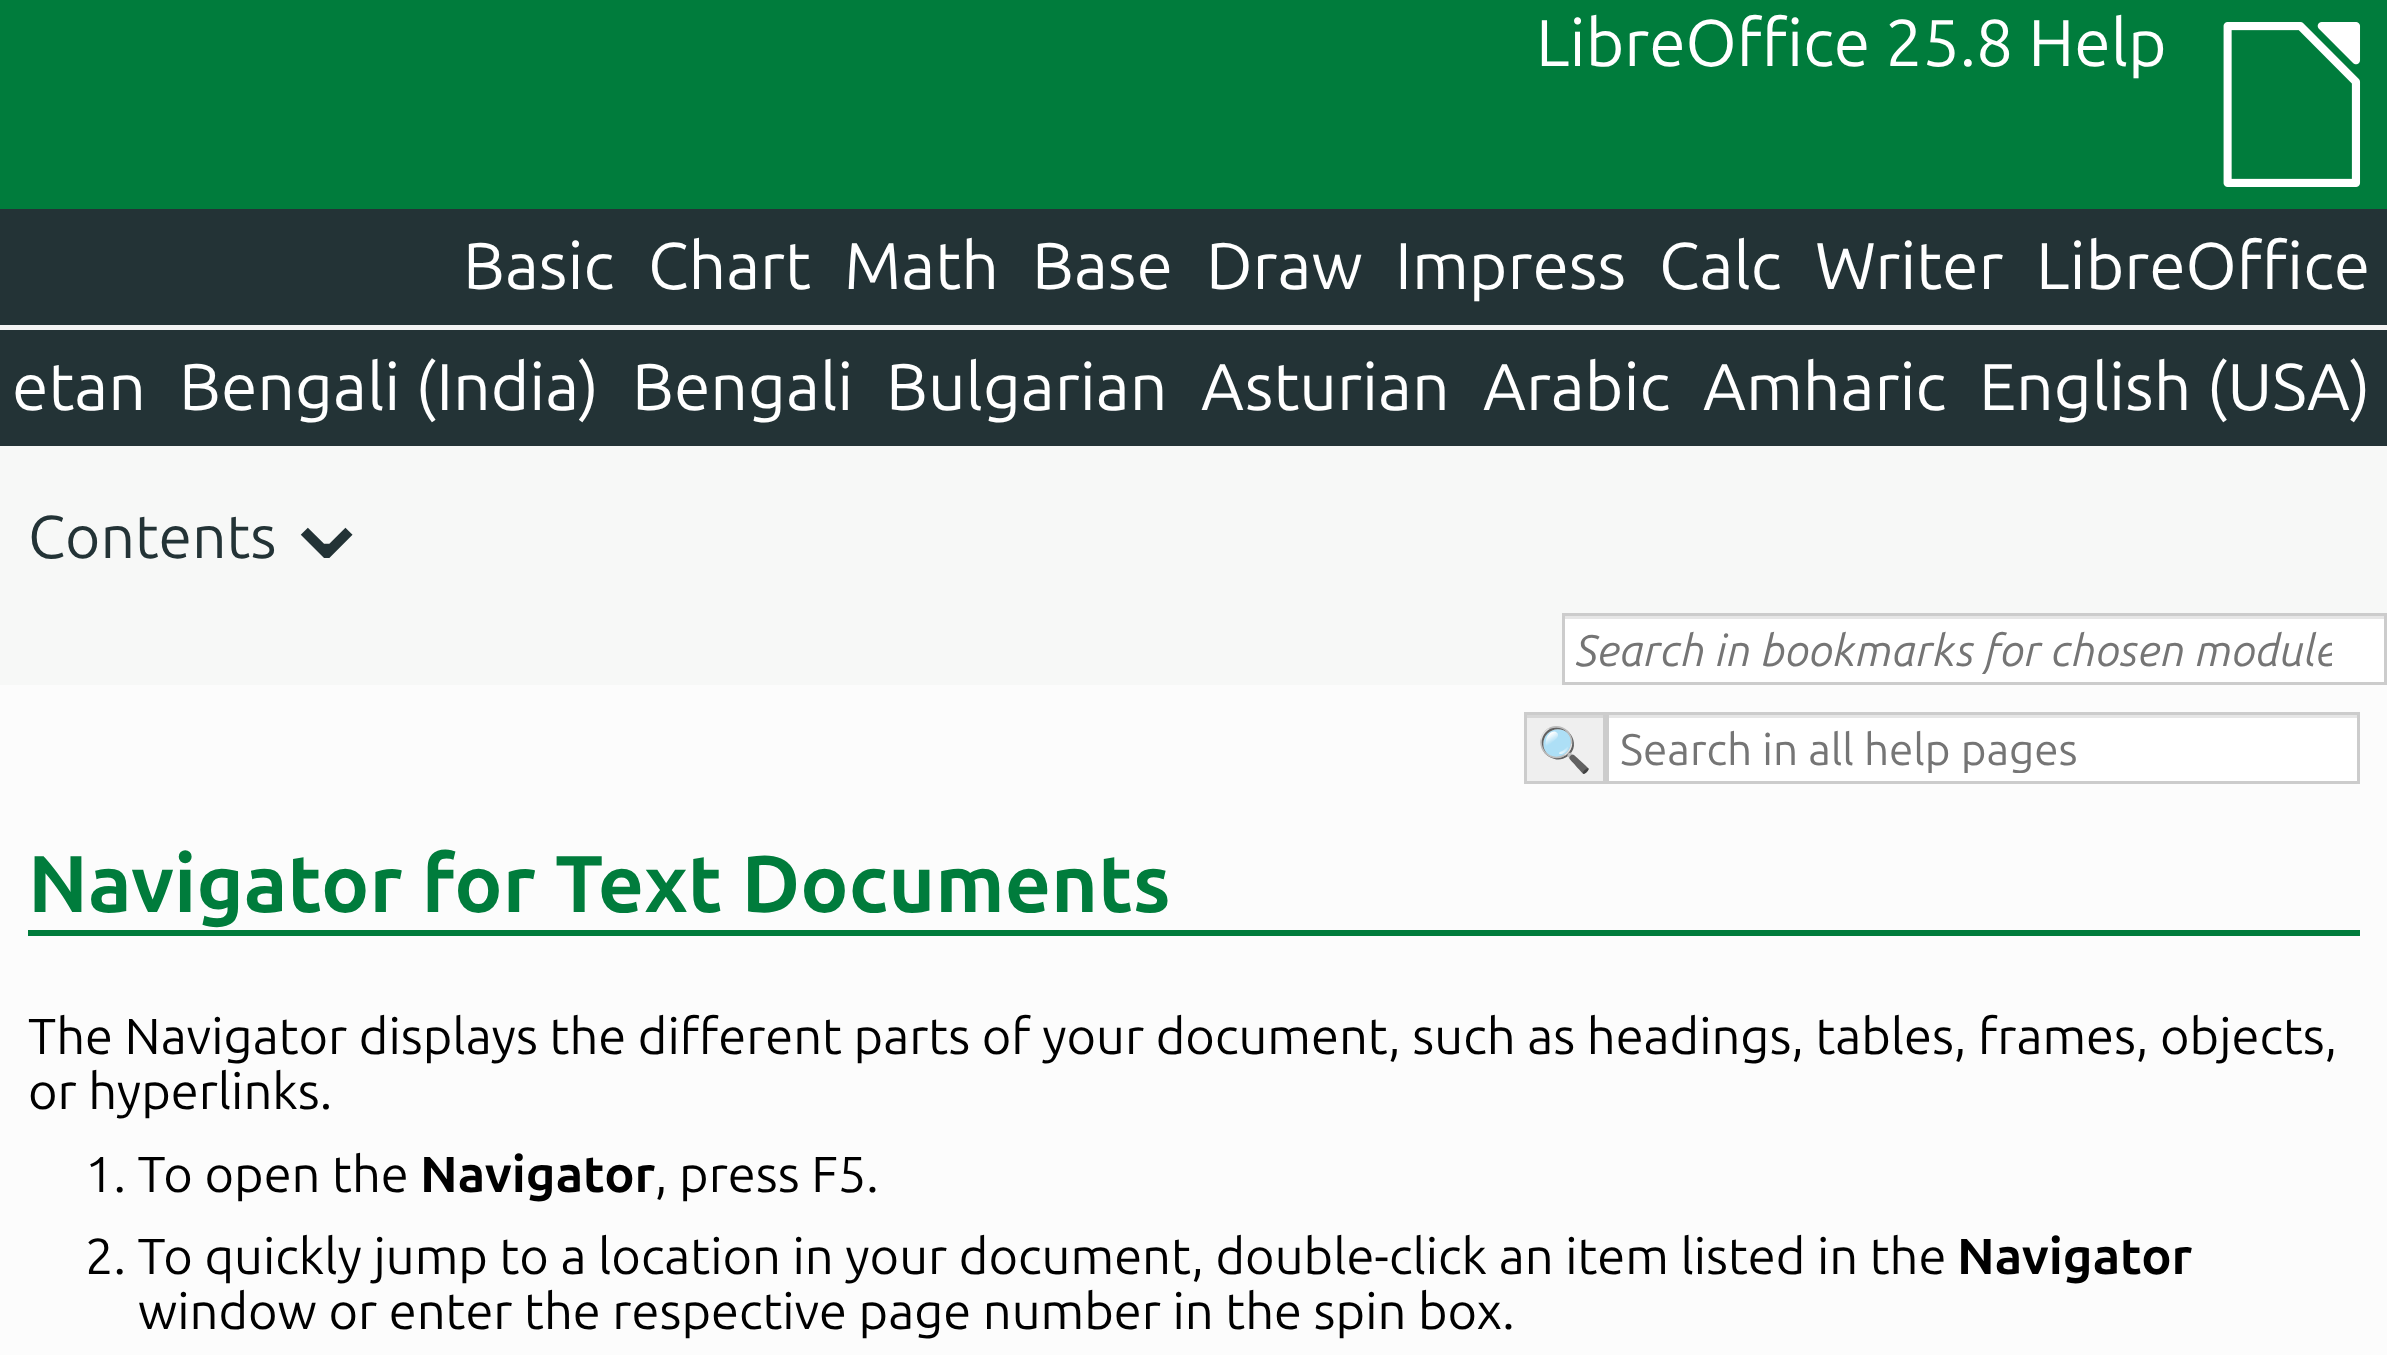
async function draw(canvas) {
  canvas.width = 2387;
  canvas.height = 1355;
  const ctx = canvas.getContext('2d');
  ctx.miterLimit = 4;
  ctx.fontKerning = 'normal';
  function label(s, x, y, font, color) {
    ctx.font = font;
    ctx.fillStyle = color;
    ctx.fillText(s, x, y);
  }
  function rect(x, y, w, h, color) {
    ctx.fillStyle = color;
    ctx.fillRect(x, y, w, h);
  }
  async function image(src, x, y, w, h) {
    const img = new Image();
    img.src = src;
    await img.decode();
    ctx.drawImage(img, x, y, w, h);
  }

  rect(0, 0, 2387, 1355, '#f7f8f7');
  rect(0, 0, 2387, 209, '#007c3c');
  label('LibreOffice 25.8 Help', 1536, 66, '66px Ubuntu', '#fff');
  await image('assets/img1.png', 2223, 22, 138, 165);
  rect(0, 209, 2387, 116, '#233336');
  rect(0, 325, 2387, 5, '#f3f3f3');
  label('Basic', 463, 289, '66px Ubuntu', '#fff');
  label('Chart', 648, 289, '66px Ubuntu', '#fff');
  label('Math', 844, 289, '66px Ubuntu', '#fff');
  label('Base', 1032, 289, '66px Ubuntu', '#fff');
  label('Draw', 1206, 289, '66px Ubuntu', '#fff');
  label('Impress', 1395, 289, '66px Ubuntu', '#fff');
  label('Calc', 1659, 289, '66px Ubuntu', '#fff');
  label('Writer', 1815, 289, '66px Ubuntu', '#fff');
  label('LibreOffice', 2036, 289, '66px Ubuntu', '#fff');
  rect(0, 330, 2387, 116, '#233336');
  label('etan', 12, 410, '66px Ubuntu', '#fff');
  label('Bengali (India)', 179, 410, '66px Ubuntu', '#fff');
  label('Bengali', 632, 410, '66px Ubuntu', '#fff');
  label('Bulgarian', 886, 410, '66px Ubuntu', '#fff');
  label('Asturian', 1201, 410, '66px Ubuntu', '#fff');
  label('Arabic', 1483, 410, '66px Ubuntu', '#fff');
  label('Amharic', 1703, 410, '66px Ubuntu', '#fff');
  label('English (USA)', 1979, 410, '66px Ubuntu', '#fff');
  label('Contents', 28, 558, '60.5px Ubuntu', '#233336');
  label('⌄', 276, 558, '121px DejaVu Sans', '#233336');
  rect(1565, 619, 819, 63, '#fff');
  rect(1565, 616, 819, 3, '#e6e6e6');
  ctx.strokeStyle = '#ccc';
  ctx.lineWidth = 3;
  ctx.strokeRect(1563.5, 614.5, 822, 69);
  ctx.save();
  ctx.beginPath();
  ctx.rect(1576, 624, 756, 50);
  ctx.clip();
  label('Search in bookmarks for chosen module', 1576, 666, 'italic 44px Ubuntu', '#757575');
  ctx.restore();
  rect(0, 685, 2387, 670, '#fcfcfc');
  rect(1527, 718, 76, 63, '#efefef');
  rect(1526, 715, 77, 3, '#d7d7d7');
  ctx.strokeRect(1525.5, 713.5, 79, 69);
  label('🔍', 1537, 765, '44px Noto Color Emoji', '#000');
  rect(1609, 718, 748, 63, '#fff');
  rect(1609, 715, 748, 3, '#e6e6e6');
  ctx.strokeRect(1607.5, 713.5, 751, 69);
  ctx.save();
  ctx.beginPath();
  ctx.rect(1620, 723, 685, 50);
  ctx.clip();
  label('Search in all help pages', 1620, 765, '44px Ubuntu', '#757575');
  ctx.restore();
  rect(28, 930, 2332, 6, '#007c3c');
  label('Navigator for Text Documents', 28, 912, 'bold 80.5px Ubuntu', '#007c3c');
  label('The Navigator displays the different parts of your document, such as headings, tables, frames, objects,', 28, 1054, '50.6px Ubuntu', '#000');
  label('or hyperlinks.', 28, 1109, '50.6px Ubuntu', '#000');
  label('1. To open the', 85, 1192, '50.6px Ubuntu', '#000');
  label('Navigator', 420, 1192, 'bold 50.6px Ubuntu', '#000');
  label(', press F5.', 655, 1192, '50.6px Ubuntu', '#000');
  label('2. To quickly jump to a location in your document, double-click an item listed in the', 85, 1274, '50.6px Ubuntu', '#000');
  label('Navigator', 1957, 1274, 'bold 50.6px Ubuntu', '#000');
  label('window or enter the respective page number in the spin box.', 138, 1329, '50.6px Ubuntu', '#000');
}

draw(document.querySelector('canvas'));
